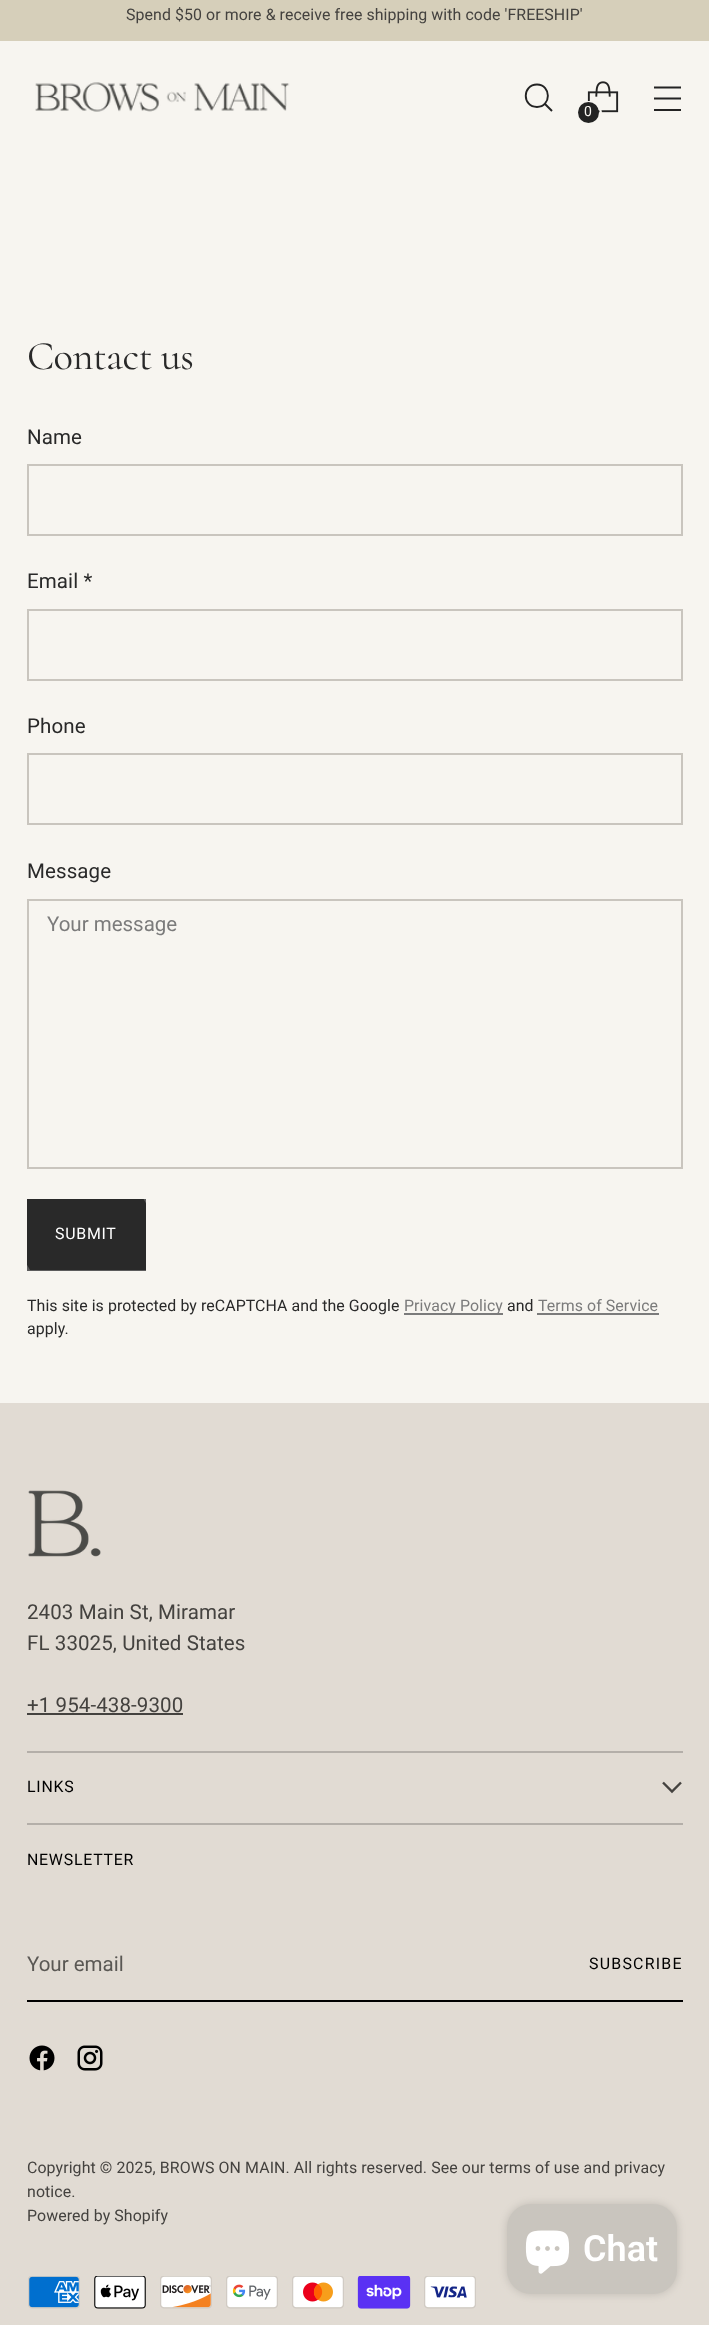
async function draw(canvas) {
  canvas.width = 709;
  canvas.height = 2325;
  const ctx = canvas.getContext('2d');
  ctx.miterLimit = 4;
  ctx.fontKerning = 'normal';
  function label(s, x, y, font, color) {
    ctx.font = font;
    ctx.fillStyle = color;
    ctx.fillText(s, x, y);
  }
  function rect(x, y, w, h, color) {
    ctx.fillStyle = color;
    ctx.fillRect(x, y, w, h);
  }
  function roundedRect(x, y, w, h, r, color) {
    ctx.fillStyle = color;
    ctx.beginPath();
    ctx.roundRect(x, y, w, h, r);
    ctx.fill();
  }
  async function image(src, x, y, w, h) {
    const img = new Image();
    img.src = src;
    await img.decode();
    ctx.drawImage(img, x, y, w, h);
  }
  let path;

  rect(0, 0, 709, 2325, '#f7f5f0');
  rect(0, 0, 709, 41, '#d6cfba');
  ctx.letterSpacing = '0.08px';
  label('Spend $50 or more & receive free shipping with code \'FREESHIP\'', 126, 20, '15.9px Roboto', '#44423f');
  await image('assets/img1.png', 35, 82, 255, 30);
  path = new Path2D('M537 107C551.5 107 551.5 84.5 537 84.5C522 84.5 522 107 537 107Z');
  ctx.strokeStyle = '#232323';
  ctx.lineWidth = 1.9;
  ctx.lineCap = 'round';
  ctx.stroke(path);
  path = new Path2D('M545 104L552 111');
  ctx.lineCap = 'butt';
  ctx.stroke(path);
  await image('assets/img2.png', 587, 81, 32, 32);
  ctx.beginPath();
  ctx.roundRect(577, 102, 24, 23, 11.5);
  ctx.strokeStyle = '#f7f5f0';
  ctx.lineWidth = 2;
  ctx.stroke();
  ctx.fillStyle = '#232323';
  ctx.beginPath();
  ctx.arc(588.5, 112.5, 10.5, 0, 2 * Math.PI);
  ctx.fill();
  ctx.letterSpacing = '0.1px';
  label('0', 584, 116, '14px Roboto', '#f7f5f0');
  path = new Path2D('M654 98.5H681M654 87.5H681M654 110H681');
  ctx.strokeStyle = '#232323';
  ctx.lineWidth = 1.9;
  ctx.stroke(path);
  ctx.letterSpacing = '-0.5px';
  label('Contact us', 27, 369, '40.5px Cormorant', '#292929');
  ctx.letterSpacing = '0.1px';
  label('Name', 27, 444, '20.5px Roboto', '#292929');
  ctx.strokeStyle = '#c9c5be';
  ctx.lineWidth = 2;
  ctx.strokeRect(28, 465, 654, 70);
  label('Email *', 27, 588, '20.5px Roboto', '#292929');
  ctx.strokeRect(28, 610, 654, 70);
  label('Phone', 27, 733, '20.5px Roboto', '#292929');
  ctx.strokeRect(28, 754, 654, 70);
  label('Message', 27, 878, '20.5px Roboto', '#292929');
  ctx.strokeRect(28, 900, 654, 268);
  ctx.letterSpacing = '0px';
  label('Your message', 47, 931, '20.5px Roboto', '#7b7b7b');
  rect(27, 1199, 119, 72, '#5c5c5c');
  ctx.save();
  ctx.beginPath();
  ctx.rect(27, 1199, 119, 72);
  ctx.clip();
  ctx.fillStyle = '#292929';
  path = new Path2D('M-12 1198H143L184 1270H30Z');
  ctx.fill(path);
  ctx.restore();
  ctx.letterSpacing = '0.75px';
  label('SUBMIT', 55, 1239, '15.9px Roboto', '#fff');
  ctx.letterSpacing = '0.08px';
  label('This site is protected by reCAPTCHA and the Google', 27, 1311, '15.9px Roboto', '#292929');
  rect(404, 1313, 99, 2, '#7b7b7b');
  label('Privacy Policy', 404, 1311, '15.9px Roboto', '#7b7b7b');
  label('and', 507, 1311, '15.9px Roboto', '#292929');
  label('Terms of Service', 538, 1311, '15.9px Roboto', '#7b7b7b');
  rect(537, 1313, 122, 2, '#7b7b7b');
  label('apply.', 27, 1334, '15.9px Roboto', '#292929');
  rect(0, 1403, 709, 922, '#e1dbd3');
  rect(27, 1751, 656, 2, '#b4afa9');
  await image('assets/img3.png', 28, 1490, 73, 67);
  ctx.letterSpacing = '0.1px';
  label('2403 Main St, Miramar', 27, 1619, '20.5px Roboto', '#44423f');
  label('FL 33025, United States', 27, 1650, '20.5px Roboto', '#44423f');
  label('+1 954-438-9300', 27, 1712, '20.5px Roboto', '#44423f');
  rect(27, 1713, 156, 2, '#44423f');
  rect(27, 1823, 656, 2, '#b4afa9');
  ctx.letterSpacing = '0.75px';
  label('LINKS', 27, 1792, '15.9px Roboto', '#000');
  path = new Path2D('M663 1782.5L672 1791.5L681 1782.5');
  ctx.strokeStyle = '#44423f';
  ctx.lineWidth = 2.4;
  ctx.stroke(path);
  label('NEWSLETTER', 27, 1865, '15.9px Roboto', '#000');
  rect(27, 2000, 656, 2, '#000');
  ctx.letterSpacing = '0px';
  label('Your email', 27, 1971, '20.5px Roboto', '#5a5854');
  ctx.letterSpacing = '1.25px';
  label('SUBSCRIBE', 589, 1969, '15.9px Roboto', '#000');
  await image('assets/img4.png', 29, 2045, 26, 26);
  await image('assets/img5.png', 77, 2045, 26, 26);
  ctx.letterSpacing = '0.1px';
  label('Copyright © 2025, BROWS ON MAIN. All rights reserved. See our terms of use and privacy', 27, 2173, '15.9px Roboto', '#44423f');
  label('notice.', 27, 2197, '15.9px Roboto', '#44423f');
  label('Powered by Shopify', 27, 2221, '15.9px Roboto', '#44423f');
  await image('assets/img6.png', 28, 2276, 52, 33);
  await image('assets/img7.png', 94, 2276, 52, 33);
  await image('assets/img8.png', 160, 2276, 52, 33);
  await image('assets/img9.png', 226, 2276, 52, 33);
  await image('assets/img10.png', 292, 2276, 52, 33);
  await image('assets/img11.png', 357, 2276, 54, 33);
  await image('assets/img12.png', 424, 2276, 52, 33);
  ctx.fillStyle = '#00000026';
  ctx.filter = 'blur(4px)';
  ctx.beginPath();
  ctx.roundRect(507, 2204, 170, 90, 24);
  ctx.fill();
  ctx.filter = 'none';
  roundedRect(507, 2204, 170, 90, 24, '#c9c5be');
  await image('assets/img13.png', 525, 2230, 45, 44);
  ctx.letterSpacing = '0px';
  label('Chat', 583, 2261, '600 36px Roboto', '#fff');
}

draw(document.querySelector('canvas'));
